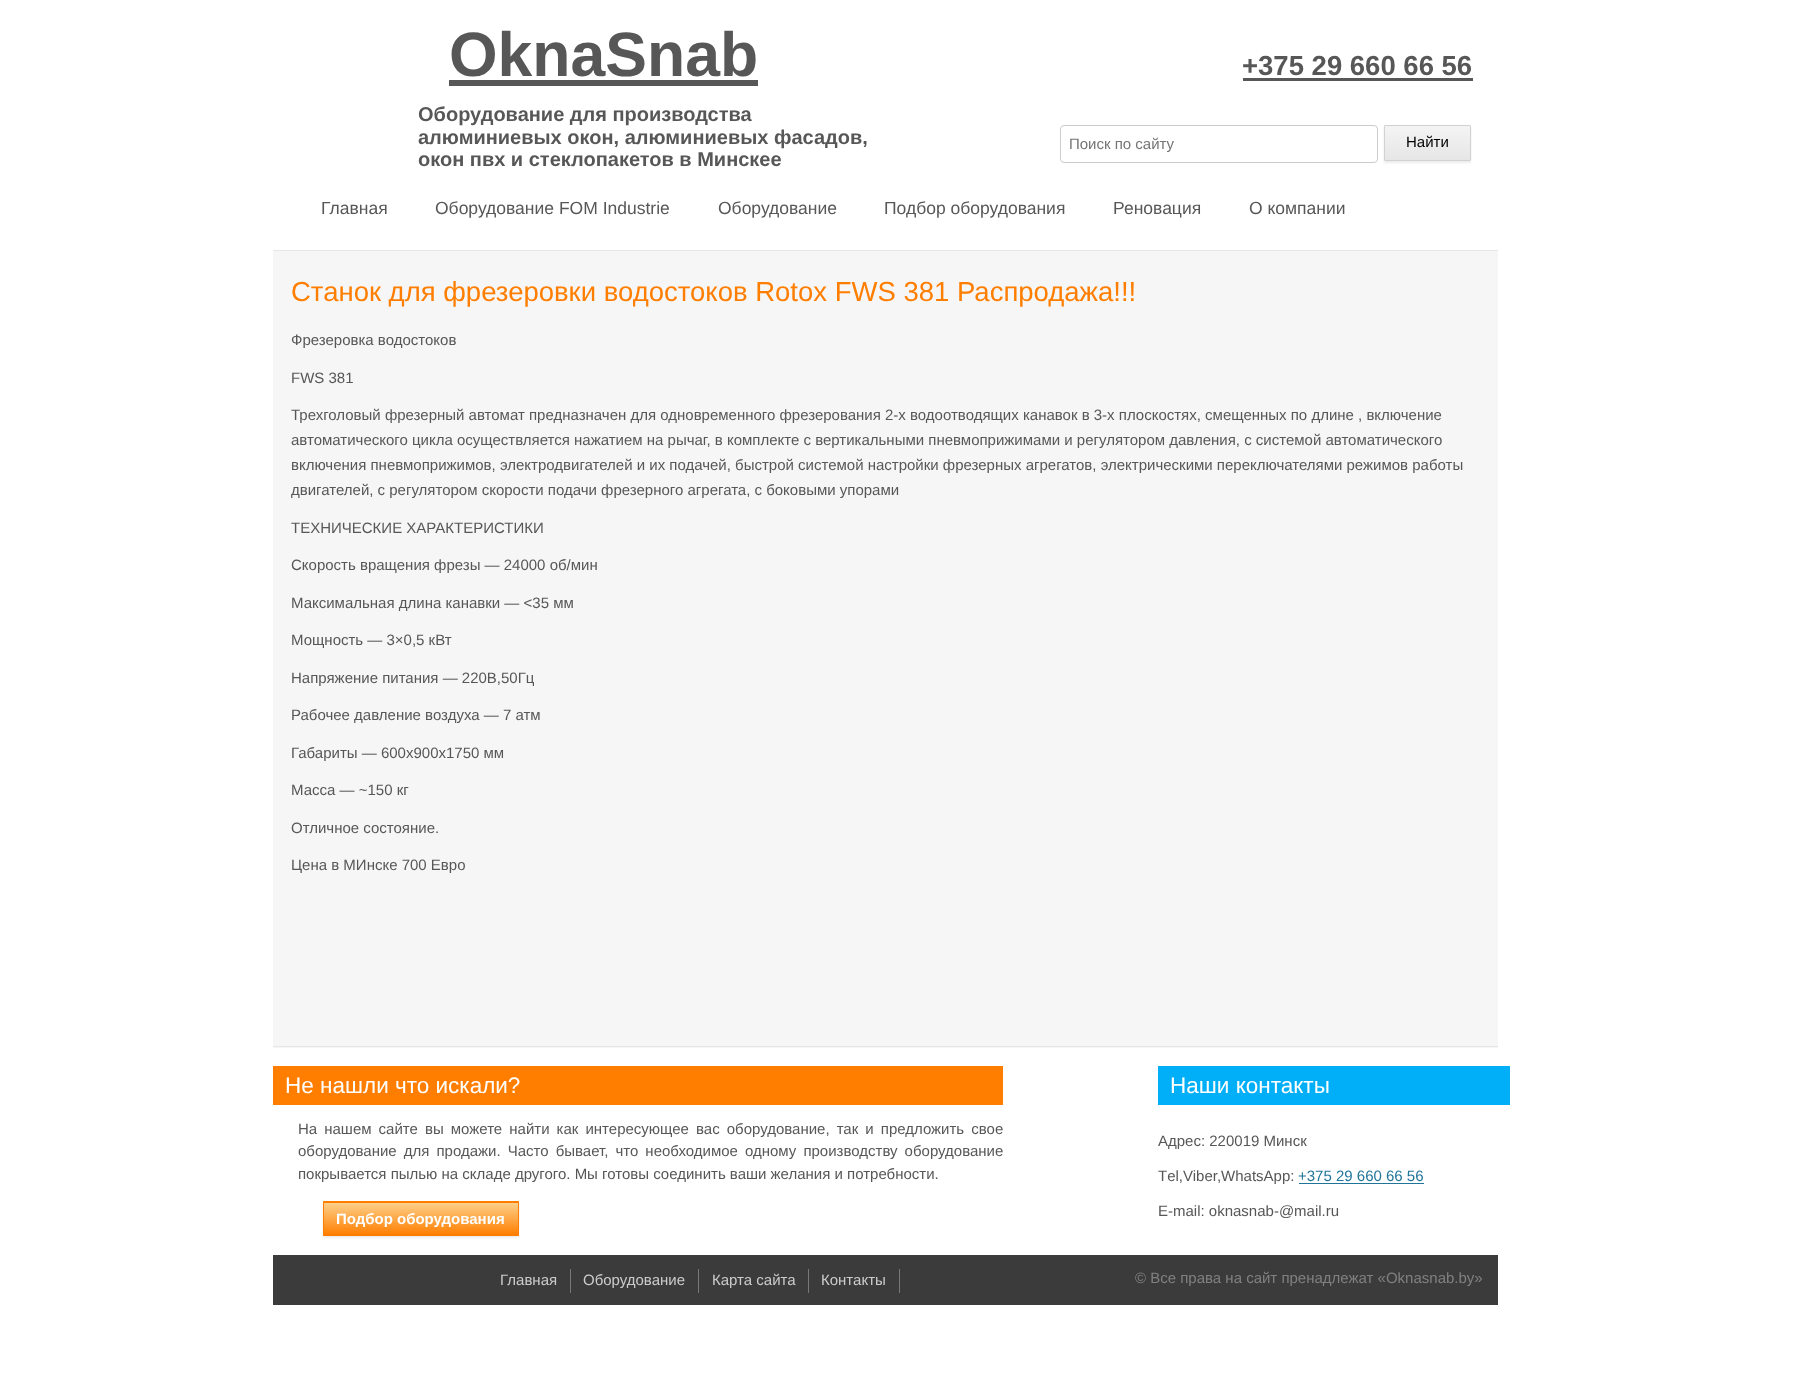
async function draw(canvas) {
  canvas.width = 1802;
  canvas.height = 1380;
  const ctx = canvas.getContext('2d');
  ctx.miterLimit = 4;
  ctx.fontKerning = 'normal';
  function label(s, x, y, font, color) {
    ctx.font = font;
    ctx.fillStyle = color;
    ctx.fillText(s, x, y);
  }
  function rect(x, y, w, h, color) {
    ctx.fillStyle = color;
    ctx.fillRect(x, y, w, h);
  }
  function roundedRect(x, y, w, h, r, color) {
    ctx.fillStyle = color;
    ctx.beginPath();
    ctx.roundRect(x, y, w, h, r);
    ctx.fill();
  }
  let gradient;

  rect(0, 0, 1802, 1380, '#fff');
  label('OknaSnab', 449, 76, 'bold 62.5px Liberation Sans', '#575757');
  rect(449, 80, 309, 6, '#575757');
  label('Оборудование для производства', 418, 121, 'bold 20px Liberation Sans', '#575757');
  label('алюминиевых окон, алюминиевых фасадов,', 418, 144, 'bold 20px Liberation Sans', '#575757');
  label('окон пвх и стеклопакетов в Минскее', 418, 166, 'bold 20px Liberation Sans', '#575757');
  label('+375 29 660 66 56', 1242, 75, 'bold 27.5px Liberation Sans', '#575757');
  rect(1243, 78, 230, 3, '#575757');
  ctx.beginPath();
  ctx.roundRect(1060.5, 125.5, 317, 37, 3.5);
  ctx.strokeStyle = '#ccc';
  ctx.stroke();
  label('Поиск по сайту', 1069, 149, '15px Liberation Sans', '#757575');
  ctx.fillStyle = '#4040401a';
  ctx.filter = 'blur(1px)';
  ctx.beginPath();
  ctx.roundRect(1384, 126, 87, 37, 1);
  ctx.fill();
  ctx.filter = 'none';
  gradient = ctx.createLinearGradient(1428, 126, 1428, 160);
  gradient.addColorStop(0, '#f4f4f4');
  gradient.addColorStop(1, '#e6e6e6');
  ctx.fillStyle = gradient;
  ctx.fillRect(1385, 127, 85, 33);
  ctx.beginPath();
  ctx.roundRect(1384.5, 125.5, 86, 35, 0.5);
  ctx.strokeStyle = '#d2d2d2';
  ctx.stroke();
  label('Найти', 1406, 147, '15px Liberation Sans', '#000');
  label('Главная', 321, 214, '17.5px Liberation Sans', '#575757');
  label('Оборудование FOM Industrie', 435, 214, '17.5px Liberation Sans', '#575757');
  label('Оборудование', 718, 214, '17.5px Liberation Sans', '#575757');
  label('Подбор оборудования', 884, 214, '17.5px Liberation Sans', '#575757');
  label('Реновация', 1113, 214, '17.5px Liberation Sans', '#575757');
  label('О компании', 1249, 214, '17.5px Liberation Sans', '#575757');
  rect(273, 251, 1225, 797, '#f6f6f6');
  rect(273, 250, 1225, 1, '#e6e6e6');
  rect(273, 1046, 1225, 1, '#e6e6e6');
  label('Станок для фрезеровки водостоков Rotox FWS 381 Распродажа!!!', 291, 301, '27.5px Liberation Sans', '#ff7e00');
  label('Фрезеровка водостоков', 291, 345, '15px Liberation Sans', '#575757');
  label('FWS 381', 291, 383, '15px Liberation Sans', '#575757');
  label('Трехголовый фрезерный автомат предназначен для одновременного фрезерования 2-х водоотводящих канавок в 3-х плоскостях, смещенных по длине , включение', 291, 420, '15px Liberation Sans', '#575757');
  label('автоматического цикла осуществляется нажатием на рычаг, в комплекте с вертикальными пневмоприжимами и регулятором давления, с системой автоматического', 291, 445, '15px Liberation Sans', '#575757');
  label('включения пневмоприжимов, электродвигателей и их подачей, быстрой системой настройки фрезерных агрегатов, электрическими переключателями режимов работы', 291, 470, '15px Liberation Sans', '#575757');
  label('двигателей, с регулятором скорости подачи фрезерного агрегата, с боковыми упорами', 291, 495, '15px Liberation Sans', '#575757');
  label('ТЕХНИЧЕСКИЕ ХАРАКТЕРИСТИКИ', 291, 533, '15px Liberation Sans', '#575757');
  label('Скорость вращения фрезы — 24000 об/мин', 291, 570, '15px Liberation Sans', '#575757');
  label('Максимальная длина канавки — <35 мм', 291, 608, '15px Liberation Sans', '#575757');
  label('Мощность — 3×0,5 кВт', 291, 645, '15px Liberation Sans', '#575757');
  label('Напряжение питания — 220В,50Гц', 291, 683, '15px Liberation Sans', '#575757');
  label('Рабочее давление воздуха — 7 атм', 291, 720, '15px Liberation Sans', '#575757');
  label('Габариты — 600х900х1750 мм', 291, 758, '15px Liberation Sans', '#575757');
  label('Масса — ~150 кг', 291, 795, '15px Liberation Sans', '#575757');
  label('Отличное состояние.', 291, 833, '15px Liberation Sans', '#575757');
  label('Цена в МИнске 700 Евро', 291, 870, '15px Liberation Sans', '#575757');
  rect(273, 1066, 730, 39, '#ff7e00');
  label('Не нашли что искали?', 285, 1093, '22.5px Liberation Sans', '#fff');
  ctx.wordSpacing = '2.9px';
  label('На нашем сайте вы можете найти как интересующее вас оборудование, так и предложить свое', 298, 1134, '15px Liberation Sans', '#575757');
  label('оборудование для продажи. Часто бывает, что необходимое одному производству оборудование', 298, 1156, '15px Liberation Sans', '#575757');
  ctx.wordSpacing = '0px';
  label('покрывается пылью на складе другого. Мы готовы соединить ваши желания и потребности.', 298, 1179, '15px Liberation Sans', '#575757');
  ctx.fillStyle = '#4040401a';
  ctx.filter = 'blur(1px)';
  ctx.beginPath();
  ctx.roundRect(323, 1203, 196, 35, 1);
  ctx.fill();
  ctx.filter = 'none';
  roundedRect(323, 1201, 196, 35, 1, '#ff7e00');
  gradient = ctx.createLinearGradient(421, 1203, 421, 1235);
  gradient.addColorStop(0, '#fdd08a');
  gradient.addColorStop(1, '#ff7e00');
  ctx.fillStyle = gradient;
  ctx.fillRect(324, 1203, 194, 31);
  ctx.beginPath();
  ctx.roundRect(323.5, 1201.5, 195, 34, 0.5);
  ctx.strokeStyle = '#ff7e00';
  ctx.stroke();
  label('Подбор оборудования', 336, 1224, 'bold 15px Liberation Sans', '#fff');
  rect(1158, 1066, 352, 39, '#00aff8');
  label('Наши контакты', 1170, 1093, '22.5px Liberation Sans', '#fff');
  label('Адрес: 220019 Минск', 1158, 1146, '15px Liberation Sans', '#575757');
  label('Тel,Viber,WhatsApp:', 1158, 1181, '15px Liberation Sans', '#575757');
  label('+375 29 660 66 56', 1298, 1181, '15px Liberation Sans', '#21759b');
  rect(1299, 1183, 125, 1, '#21759b');
  label('E-mail: оknasnab-@mail.ru', 1158, 1216, '15px Liberation Sans', '#575757');
  rect(273, 1255, 1225, 50, '#3b3b3b');
  rect(570, 1269, 1, 24, '#777');
  label('Главная', 500, 1285, '15px Liberation Sans', '#ccc');
  rect(698, 1269, 1, 24, '#777');
  label('Оборудование', 583, 1285, '15px Liberation Sans', '#ccc');
  rect(808, 1269, 1, 24, '#777');
  label('Карта сайта', 712, 1285, '15px Liberation Sans', '#ccc');
  rect(899, 1269, 1, 24, '#777');
  label('Контакты', 821, 1285, '15px Liberation Sans', '#ccc');
  label('© Все права на сайт пренадлежат «Oknasnab.by»', 1135, 1283, '15px Liberation Sans', '#808080');
}

draw(document.querySelector('canvas'));
